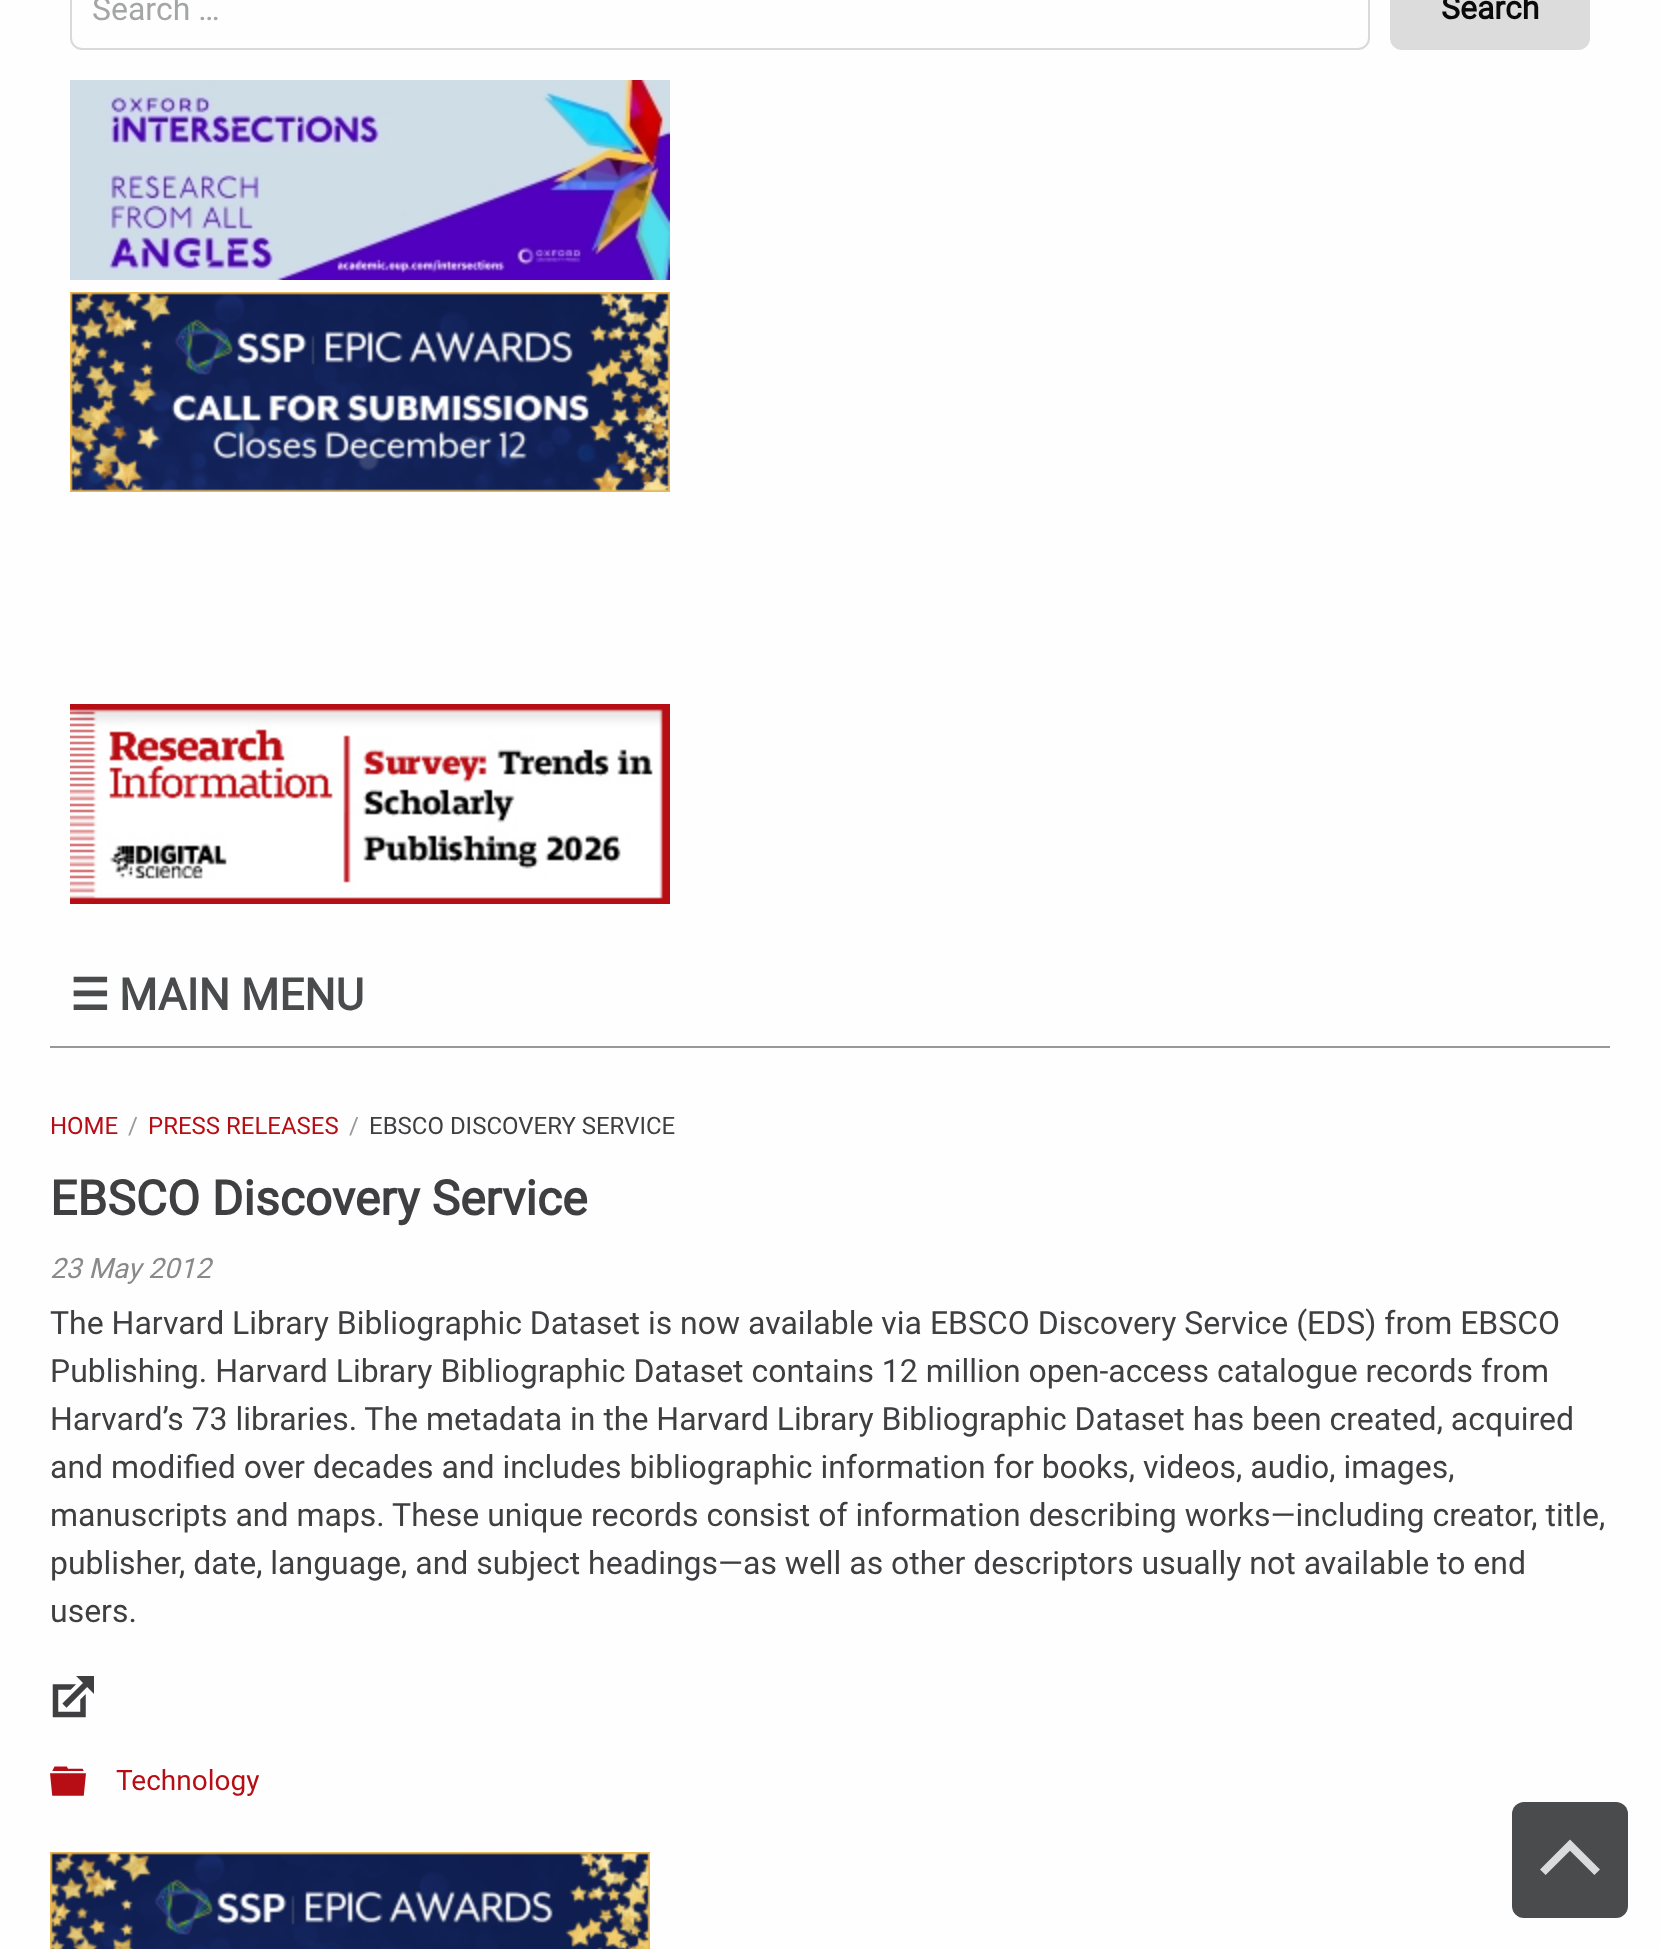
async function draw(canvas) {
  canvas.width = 1660;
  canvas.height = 1949;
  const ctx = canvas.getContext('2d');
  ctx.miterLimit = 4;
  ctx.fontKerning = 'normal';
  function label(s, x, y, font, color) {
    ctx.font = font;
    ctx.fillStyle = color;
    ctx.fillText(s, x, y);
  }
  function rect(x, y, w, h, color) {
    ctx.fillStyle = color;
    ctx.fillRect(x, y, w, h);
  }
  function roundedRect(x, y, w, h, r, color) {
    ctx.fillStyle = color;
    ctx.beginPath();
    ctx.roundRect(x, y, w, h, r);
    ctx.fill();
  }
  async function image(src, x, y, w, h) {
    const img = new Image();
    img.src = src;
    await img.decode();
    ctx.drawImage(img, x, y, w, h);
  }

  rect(0, 0, 1660, 1949, '#fefefe');
  ctx.beginPath();
  ctx.roundRect(71, -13, 1298, 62, 11);
  ctx.strokeStyle = '#dadada';
  ctx.lineWidth = 2;
  ctx.stroke();
  label('Search …', 92, 20, '32px Roboto', '#a4a5a5');
  roundedRect(1390, -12, 200, 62, 12, '#dcdcdc');
  label('Search', 1441, 19, 'bold 32px Roboto', '#0a0a0a');
  await image('assets/img1.png', 70, 80, 600, 200);
  await image('assets/img2.png', 70, 292, 600, 200);
  await image('assets/img3.png', 70, 704, 600, 200);
  rect(50, 1046, 1560, 2, '#999');
  label('☰', 70, 1010, 'bold 44px DejaVu Sans', '#494b4c');
  label('MAIN MENU', 119, 1010, 'bold 44px Roboto', '#494b4c');
  label('HOME', 50, 1134, '24px Roboto', '#b70e16');
  label('/', 128, 1134, '24px Roboto', '#999');
  label('PRESS RELEASES', 148, 1134, '24px Roboto', '#b70e16');
  label('/', 349, 1134, '24px Roboto', '#999');
  label('EBSCO DISCOVERY SERVICE', 369, 1134, '24px Roboto', '#3f3f42');
  label('EBSCO Discovery Service', 50, 1215, 'bold 48px Roboto', '#3f3f42');
  label('23 May 2012', 50, 1278, 'italic 28px Roboto', '#8a8a8a');
  label('The Harvard Library Bibliographic Dataset is now available via EBSCO Discovery Service (EDS) from EBSCO', 50, 1334, '32px Roboto', '#3f3f42');
  label('Publishing. Harvard Library Bibliographic Dataset contains 12 million open-access catalogue records from', 50, 1382, '32px Roboto', '#3f3f42');
  label('Harvard’s 73 libraries. The metadata in the Harvard Library Bibliographic Dataset has been created, acquired', 50, 1430, '32px Roboto', '#3f3f42');
  label('and modified over decades and includes bibliographic information for books, videos, audio, images,', 50, 1478, '32px Roboto', '#3f3f42');
  label('manuscripts and maps. These unique records consist of information describing works—including creator, title,', 50, 1526, '32px Roboto', '#3f3f42');
  label('publisher, date, language, and subject headings—as well as other descriptors usually not available to end', 50, 1574, '32px Roboto', '#3f3f42');
  label('users.', 50, 1622, '32px Roboto', '#3f3f42');
  await image('assets/img4.png', 52, 1676, 42, 42);
  await image('assets/img5.png', 50, 1766, 36, 30);
  label('Technology', 116, 1790, '28px Roboto', '#b70e16');
  await image('assets/img6.png', 50, 1852, 600, 97);
  roundedRect(1512, 1802, 116, 116, 12, '#494b4c');
  await image('assets/img7.png', 1540, 1839, 60, 36);
}

draw(document.querySelector('canvas'));
